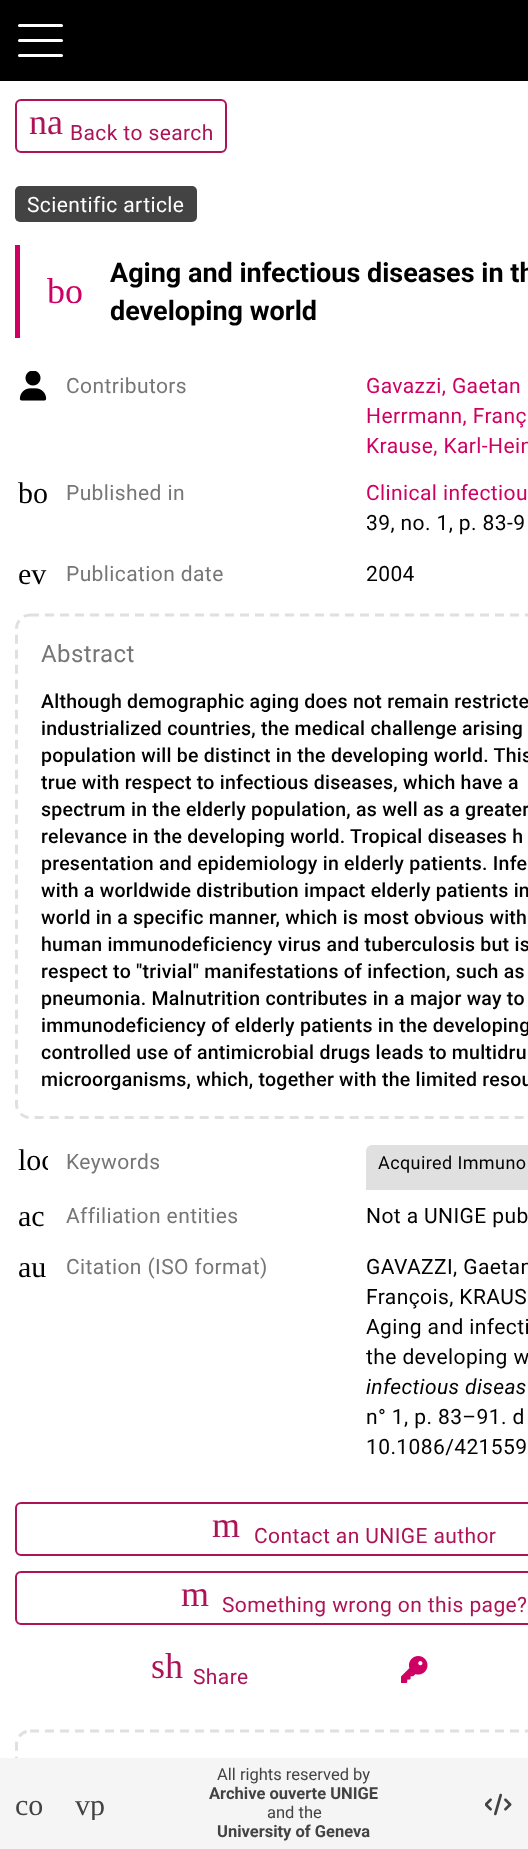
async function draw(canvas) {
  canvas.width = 528;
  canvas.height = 1849;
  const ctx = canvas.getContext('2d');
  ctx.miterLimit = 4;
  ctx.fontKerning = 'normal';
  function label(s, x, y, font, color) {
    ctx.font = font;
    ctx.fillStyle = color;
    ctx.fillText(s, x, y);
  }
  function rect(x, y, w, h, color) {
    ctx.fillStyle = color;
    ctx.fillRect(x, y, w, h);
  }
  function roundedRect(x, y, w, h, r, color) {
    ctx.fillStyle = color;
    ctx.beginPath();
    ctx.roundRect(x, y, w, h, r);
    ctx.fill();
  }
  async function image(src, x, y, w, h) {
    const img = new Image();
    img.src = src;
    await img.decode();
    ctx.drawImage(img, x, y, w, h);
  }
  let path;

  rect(0, 0, 528, 1849, '#fff');
  rect(0, 0, 528, 81, '#000');
  roundedRect(18, 24, 45, 3, 1.5, '#fff');
  roundedRect(18, 39, 45, 3, 1.5, '#fff');
  roundedRect(18, 54, 45, 3, 1.5, '#fff');
  ctx.beginPath();
  ctx.roundRect(16, 100, 210, 52, 5);
  ctx.strokeStyle = '#ad1457';
  ctx.lineWidth = 2;
  ctx.stroke();
  label('na', 29, 134, '36px Liberation Serif', '#ad1457');
  ctx.letterSpacing = '0.4px';
  label('Back to search', 70, 140, '21px Roboto', '#ad1457');
  roundedRect(15, 186, 182, 36, 5, '#434343');
  label('Scientific article', 27, 212, '21px Roboto', '#fff');
  rect(15, 245, 5, 93, '#cf0063');
  ctx.letterSpacing = '0px';
  label('bo', 47, 303, '36px Liberation Serif', '#cf0063');
  label('Aging and infectious diseases in th', 110, 282, 'bold 27px Roboto', '#000');
  label('developing world', 110, 320, 'bold 27px Roboto', '#000');
  await image('assets/img1.png', 19, 371, 28, 30);
  ctx.letterSpacing = '0.4px';
  label('Contributors', 66, 393, '21px Roboto', '#767676');
  label('Gavazzi, Gaetan', 366, 393, '21px Roboto', '#cf0063');
  label('Herrmann, Franç', 366, 423, '21px Roboto', '#cf0063');
  label('Krause, Karl-Hein', 366, 453, '21px Roboto', '#cf0063');
  ctx.letterSpacing = '0px';
  label('bo', 18, 503, '30px Liberation Serif', '#000');
  ctx.letterSpacing = '0.4px';
  label('Published in', 66, 500, '21px Roboto', '#767676');
  label('Clinical infectiou', 366, 500, '21px Roboto', '#cf0063');
  label('39, no. 1, p. 83-9', 366, 530, '21px Roboto', '#000');
  ctx.letterSpacing = '0px';
  label('ev', 18, 584, '30px Liberation Serif', '#000');
  ctx.letterSpacing = '0.4px';
  label('Publication date', 66, 581, '21px Roboto', '#767676');
  label('2004', 366, 581, '21px Roboto', '#000');
  path = new Path2D('M30 615H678C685.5 615 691.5 621 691.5 628.5V1104C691.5 1111.5 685.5 1117.5 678 1117.5H30C22.5 1117.5 16.5 1111.5 16.5 1104V628.5C16.5 621 22.5 615 30 615Z');
  ctx.strokeStyle = '#e0e0e0';
  ctx.lineWidth = 3;
  ctx.setLineDash([9, 6]);
  ctx.stroke(path);
  label('Abstract', 41, 662, '24px Roboto', '#767676');
  ctx.letterSpacing = '0.25px';
  label('Although demographic aging does not remain restricte', 41, 708, '500 19.5px Roboto', '#000');
  label('industrialized countries, the medical challenge arising', 41, 735, '500 19.5px Roboto', '#000');
  label('population will be distinct in the developing world. This', 41, 762, '500 19.5px Roboto', '#000');
  ctx.save();
  ctx.beginPath();
  ctx.rect(41, 689, 487, 405);
  ctx.clip();
  label('true with respect to infectious diseases, which have a', 41, 789, '500 19.5px Roboto', '#000');
  ctx.restore();
  label('spectrum in the elderly population, as well as a greater', 41, 816, '500 19.5px Roboto', '#000');
  label('relevance in the developing world. Tropical diseases h', 41, 843, '500 19.5px Roboto', '#000');
  label('presentation and epidemiology in elderly patients. Infe', 41, 870, '500 19.5px Roboto', '#000');
  label('with a worldwide distribution impact elderly patients in', 41, 897, '500 19.5px Roboto', '#000');
  label('world in a specific manner, which is most obvious with', 41, 924, '500 19.5px Roboto', '#000');
  label('human immunodeficiency virus and tuberculosis but is', 41, 951, '500 19.5px Roboto', '#000');
  label('respect to "trivial" manifestations of infection, such as', 41, 978, '500 19.5px Roboto', '#000');
  label('pneumonia. Malnutrition contributes in a major way to', 41, 1005, '500 19.5px Roboto', '#000');
  label('immunodeficiency of elderly patients in the developing', 41, 1032, '500 19.5px Roboto', '#000');
  label('controlled use of antimicrobial drugs leads to multidru', 41, 1059, '500 19.5px Roboto', '#000');
  label('microorganisms, which, together with the limited resou', 41, 1086, '500 19.5px Roboto', '#000');
  ctx.save();
  ctx.beginPath();
  ctx.rect(18, 1145, 30, 30);
  ctx.clip();
  ctx.letterSpacing = '0px';
  label('loc', 18, 1170, '30px Liberation Serif', '#000');
  ctx.restore();
  ctx.letterSpacing = '0.4px';
  label('Keywords', 66, 1169, '21px Roboto', '#767676');
  ctx.fillStyle = '#e0e0e0';
  ctx.beginPath();
  ctx.roundRect(366, 1145, 162, 45, [6, 0, 0, 0]);
  ctx.fill();
  label('Acquired Immuno', 378, 1169, '18px Roboto', '#000');
  ctx.letterSpacing = '0px';
  label('ac', 18, 1226, '30px Liberation Serif', '#000');
  ctx.letterSpacing = '0.4px';
  label('Affiliation entities', 66, 1223, '21px Roboto', '#767676');
  label('Not a UNIGE pub', 366, 1223, '21px Roboto', '#000');
  ctx.letterSpacing = '0px';
  label('au', 18, 1277, '30px Liberation Serif', '#000');
  ctx.letterSpacing = '0.4px';
  label('Citation (ISO format)', 66, 1274, '21px Roboto', '#767676');
  label('GAVAZZI, Gaetan', 366, 1274, '21px Roboto', '#000');
  label('François, KRAUS', 366, 1304, '21px Roboto', '#000');
  label('Aging and infecti', 366, 1334, '21px Roboto', '#000');
  label('the developing w', 366, 1364, '21px Roboto', '#000');
  label('infectious diseas', 366, 1394, 'italic 21px Roboto', '#000');
  label('n° 1, p. 83–91. d', 366, 1424, '21px Roboto', '#000');
  label('10.1086/421559', 366, 1454, '21px Roboto', '#000');
  ctx.beginPath();
  ctx.roundRect(16, 1503, 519, 52, 5);
  ctx.strokeStyle = '#ad1457';
  ctx.lineWidth = 2;
  ctx.setLineDash([]);
  ctx.stroke();
  ctx.letterSpacing = '0px';
  label('m', 212, 1537, '36px Liberation Serif', '#ad1457');
  ctx.letterSpacing = '0.4px';
  label('Contact an UNIGE author', 254, 1543, '21px Roboto', '#ad1457');
  ctx.beginPath();
  ctx.roundRect(16, 1572, 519, 52, 5);
  ctx.stroke();
  ctx.letterSpacing = '0px';
  label('m', 181, 1606, '36px Liberation Serif', '#ad1457');
  ctx.letterSpacing = '0.4px';
  label('Something wrong on this page?', 222, 1612, '21px Roboto', '#ad1457');
  ctx.letterSpacing = '0px';
  label('sh', 151, 1678, '36px Liberation Serif', '#ad1457');
  ctx.letterSpacing = '0.4px';
  label('Share', 193, 1684, '21px Roboto', '#ad1457');
  await image('assets/img2.png', 401, 1656, 27, 27);
  path = new Path2D('M30 1731H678C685.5 1731 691.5 1737 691.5 1744.5V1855.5C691.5 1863 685.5 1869 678 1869H30C22.5 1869 16.5 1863 16.5 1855.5V1744.5C16.5 1737 22.5 1731 30 1731Z');
  ctx.strokeStyle = '#e0e0e0';
  ctx.lineWidth = 3;
  ctx.setLineDash([9, 6]);
  ctx.stroke(path);
  rect(0, 1758, 528, 91, '#f5f5f5');
  ctx.letterSpacing = '0px';
  label('co', 15, 1815, '30px Liberation Serif', '#434343');
  ctx.save();
  ctx.beginPath();
  ctx.rect(75, 1790, 30, 30);
  ctx.clip();
  label('vp', 75, 1815, '30px Liberation Serif', '#434343');
  ctx.restore();
  label('All rights reserved by', 217, 1780, '16.5px Roboto', '#434343');
  label('Archive ouverte UNIGE', 209, 1799, 'bold 16.5px Roboto', '#434343');
  label('and the', 267, 1818, '16.5px Roboto', '#434343');
  label('University of Geneva', 217, 1837, 'bold 16.5px Roboto', '#434343');
  await image('assets/img3.png', 485, 1793, 27, 23);
}

draw(document.querySelector('canvas'));
